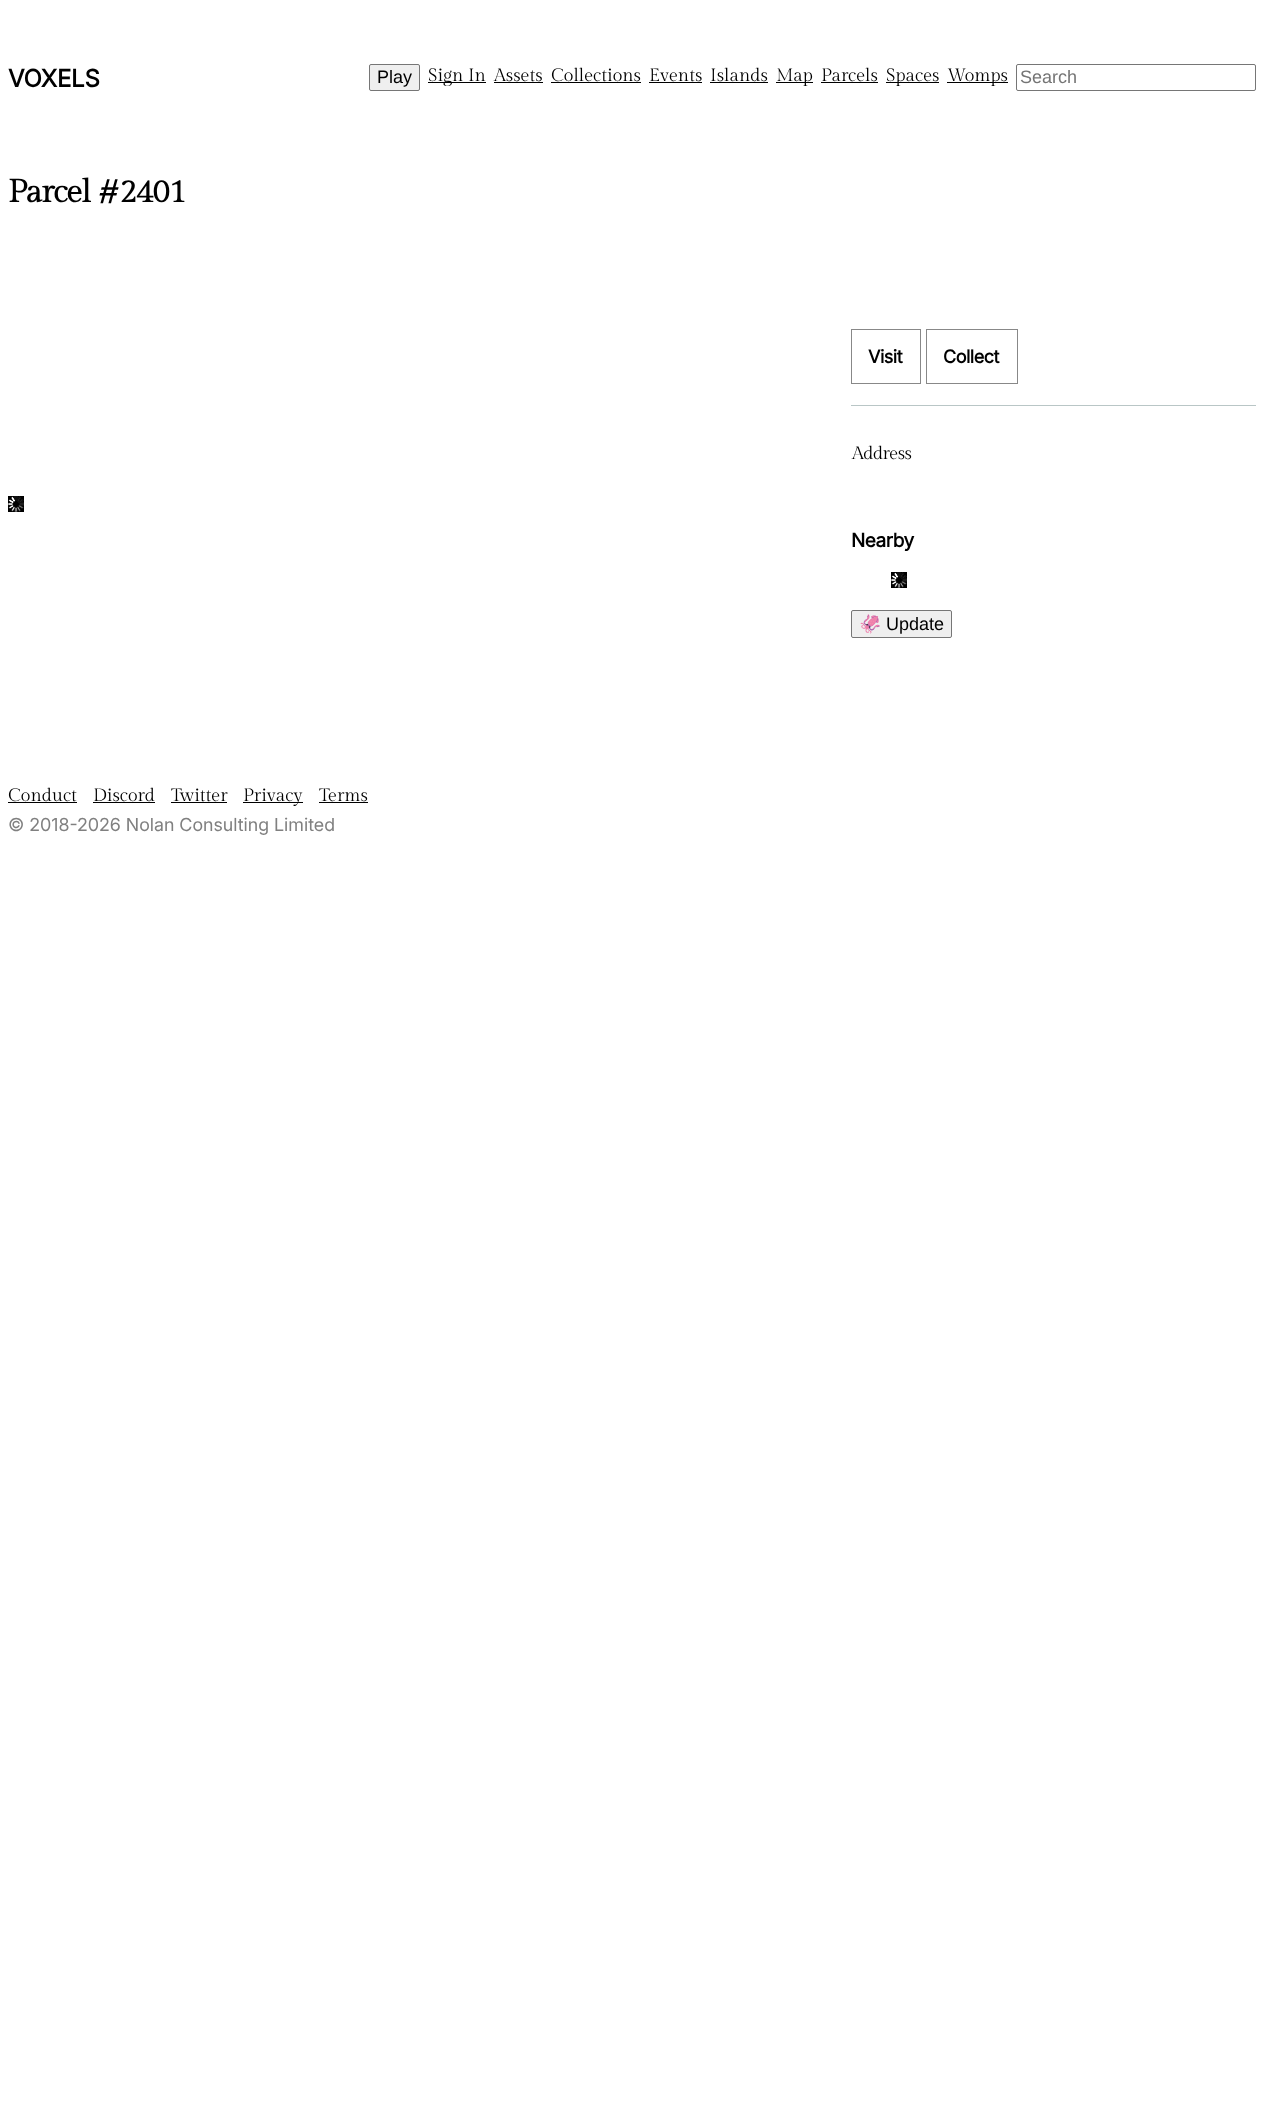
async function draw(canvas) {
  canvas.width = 1264;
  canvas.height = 2122;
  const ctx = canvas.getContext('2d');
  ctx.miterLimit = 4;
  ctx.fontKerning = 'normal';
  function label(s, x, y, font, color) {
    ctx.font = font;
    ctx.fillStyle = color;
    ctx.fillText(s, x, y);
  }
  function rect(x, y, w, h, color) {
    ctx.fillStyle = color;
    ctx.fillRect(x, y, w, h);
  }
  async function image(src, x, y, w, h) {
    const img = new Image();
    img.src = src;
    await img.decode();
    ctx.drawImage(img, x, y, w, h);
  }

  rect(0, 0, 1264, 2122, '#fff');
  ctx.letterSpacing = '-0.25px';
  label('VOXELS', 8, 87, 'bold 24px Inter', '#000');
  ctx.fillStyle = '#efefef';
  ctx.beginPath();
  ctx.roundRect(369.5, 64.5, 50, 26, 1.5);
  ctx.fill();
  ctx.strokeStyle = '#767676';
  ctx.stroke();
  ctx.letterSpacing = '0px';
  label('Play', 377, 83, '18px Liberation Sans', '#000');
  rect(428, 82, 58, 1, '#000');
  label('Sign In', 428, 81, '18px Gilda Display', '#000');
  label('Assets', 494, 81, '18px Gilda Display', '#000');
  rect(494, 82, 49, 1, '#000');
  label('Collections', 551, 81, '18px Gilda Display', '#000');
  rect(551, 82, 90, 1, '#000');
  label('Events', 649, 81, '18px Gilda Display', '#000');
  rect(649, 82, 53, 1, '#000');
  label('Islands', 710, 81, '18px Gilda Display', '#000');
  rect(710, 82, 58, 1, '#000');
  rect(776, 82, 37, 1, '#000');
  label('Map', 776, 81, '18px Gilda Display', '#000');
  label('Parcels', 821, 81, '18px Gilda Display', '#000');
  rect(821, 82, 57, 1, '#000');
  rect(886, 82, 53, 1, '#000');
  label('Spaces', 886, 81, '18px Gilda Display', '#000');
  rect(947, 82, 61, 1, '#000');
  label('Womps', 947, 81, '18px Gilda Display', '#000');
  ctx.beginPath();
  ctx.roundRect(1016.5, 64.5, 239, 26, 1.5);
  ctx.stroke();
  label('Search', 1020, 83, '18px Liberation Sans', '#757575');
  ctx.letterSpacing = '-1px';
  label('Parcel #2401', 8, 202, 'bold 32px Gilda Display', '#000');
  await image('assets/img1.png', 8, 496, 16, 16);
  ctx.strokeStyle = '#888';
  ctx.strokeRect(851.5, 329.5, 69, 54);
  ctx.letterSpacing = '-0.5px';
  label('Visit', 868, 363, 'bold 18px Inter', '#000');
  ctx.strokeRect(926.5, 329.5, 91, 54);
  label('Collect', 943, 363, 'bold 18px Inter', '#000');
  rect(851, 405, 405, 1, '#b9c6c6');
  label('Address', 852, 459, '18px Gilda Display', '#000');
  label('Nearby', 851, 547, 'bold 19px Inter', '#000');
  await image('assets/img1.png', 891, 572, 16, 16);
  ctx.fillStyle = '#efefef';
  ctx.beginPath();
  ctx.roundRect(851.5, 610.5, 100, 27, 1.5);
  ctx.fill();
  ctx.strokeStyle = '#767676';
  ctx.stroke();
  ctx.letterSpacing = '0px';
  label('🦑', 859, 630, '18px Noto Color Emoji', '#000');
  label('Update', 886, 630, '18px Liberation Sans', '#000');
  label('Conduct', 8, 801, '18px Gilda Display', '#000');
  rect(8, 802, 69, 1, '#000');
  label('Discord', 93, 801, '18px Gilda Display', '#000');
  rect(93, 802, 62, 1, '#000');
  label('Twitter', 171, 801, '18px Gilda Display', '#000');
  rect(171, 802, 56, 1, '#000');
  rect(243, 802, 60, 1, '#000');
  label('Privacy', 243, 801, '18px Gilda Display', '#000');
  label('Terms', 319, 801, '18px Gilda Display', '#000');
  rect(319, 802, 49, 1, '#000');
  label('© 2018-2026 Nolan Consulting Limited', 8, 831, '18px Inter', '#808080');
}

draw(document.querySelector('canvas'));
